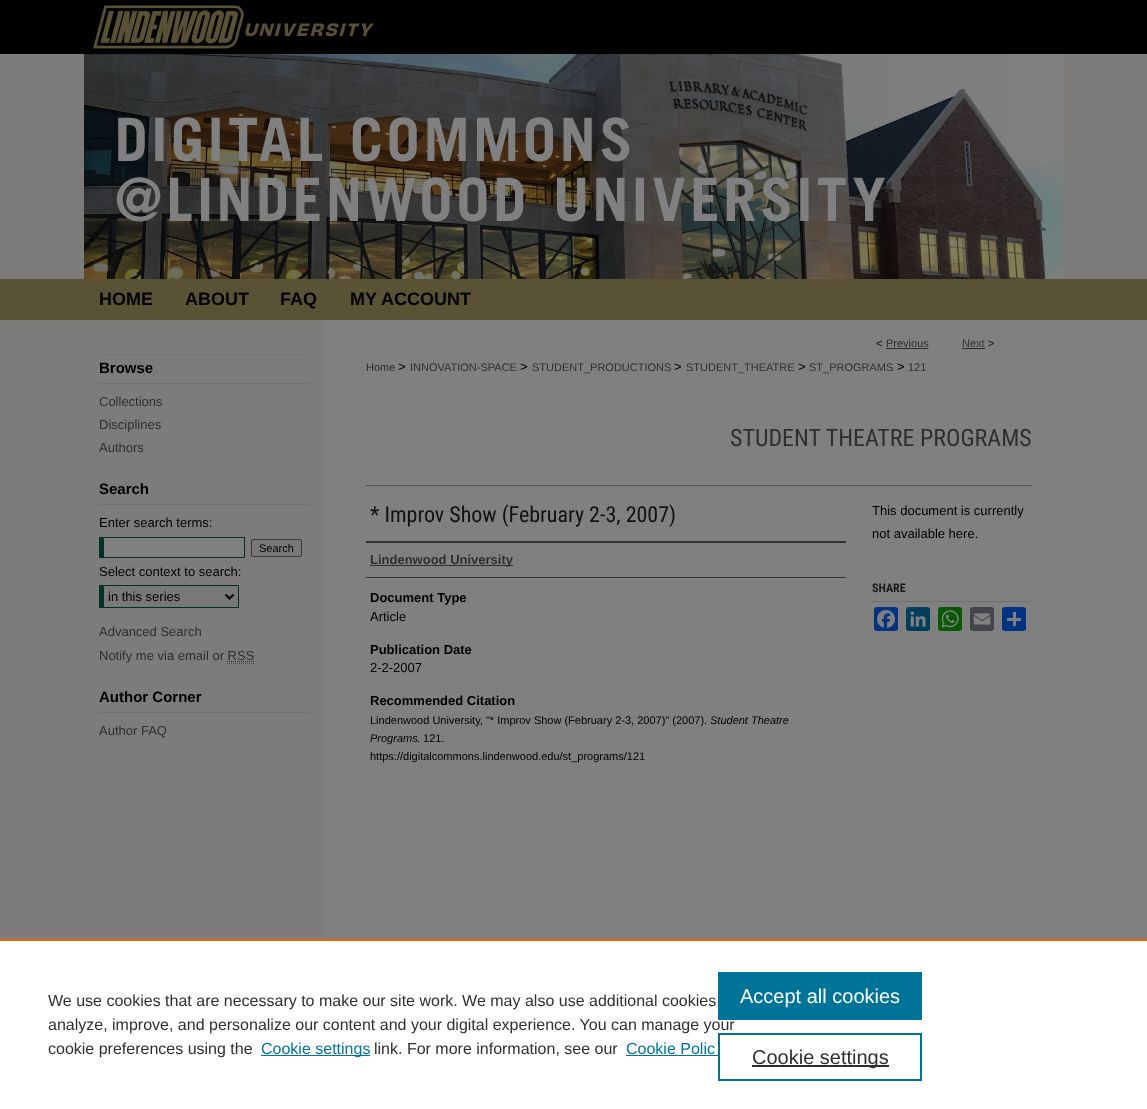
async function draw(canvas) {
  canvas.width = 1147;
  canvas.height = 1109;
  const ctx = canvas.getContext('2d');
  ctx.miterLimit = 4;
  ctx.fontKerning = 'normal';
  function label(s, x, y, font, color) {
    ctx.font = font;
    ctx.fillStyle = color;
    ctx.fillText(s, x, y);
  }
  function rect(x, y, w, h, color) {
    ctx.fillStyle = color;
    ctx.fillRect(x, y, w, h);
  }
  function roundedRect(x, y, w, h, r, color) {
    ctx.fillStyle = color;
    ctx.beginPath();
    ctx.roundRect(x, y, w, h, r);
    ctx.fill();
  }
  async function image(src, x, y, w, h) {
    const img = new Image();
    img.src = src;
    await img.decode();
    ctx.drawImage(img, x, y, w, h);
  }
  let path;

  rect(0, 0, 1147, 1109, '#fff');
  await image('assets/img1.png', 0, 0, 1147, 939);
  await image('assets/img2.png', 84, 0, 980, 279);
  await image('assets/img3.png', 93, 5, 395, 44);
  label('HOME', 99, 305, 'bold 18px Liberation Sans', '#000');
  label('ABOUT', 185, 305, 'bold 18px Liberation Sans', '#000');
  label('FAQ', 280, 305, 'bold 18px Liberation Sans', '#000');
  label('MY ACCOUNT', 350, 305, 'bold 18px Liberation Sans', '#000');
  rect(324, 320, 249, 619, '#808080');
  rect(99, 352, 210, 1, '#808080');
  rect(99, 383, 210, 1, '#72716b');
  label('Browse', 99, 373, 'bold 15px Liberation Sans', '#000');
  label('Collections', 99, 406, '13px Liberation Sans', '#2f2f2f');
  label('Disciplines', 99, 429, '13px Liberation Sans', '#2f2f2f');
  label('Authors', 99, 452, '13px Liberation Sans', '#2f2f2f');
  rect(99, 473, 210, 1, '#808080');
  rect(99, 504, 210, 1, '#72716b');
  label('Search', 99, 494, 'bold 15px Liberation Sans', '#000');
  label('Enter search terms:', 99, 527, '13px Liberation Sans', '#000');
  rect(104, 538, 140, 19, '#808080');
  rect(99, 537, 146, 1, '#02302b');
  rect(244, 537, 1, 21, '#02302b');
  rect(99, 557, 146, 1, '#02302b');
  rect(99, 537, 5, 21, '#02302b');
  ctx.fillStyle = '#787878';
  ctx.beginPath();
  ctx.roundRect(251.5, 539.5, 50, 17, 1.5);
  ctx.fill();
  ctx.strokeStyle = '#3b3b3b';
  ctx.stroke();
  label('Search', 259, 552, '11px Liberation Sans', '#000');
  label('Select context to search:', 99, 576, '13px Liberation Sans', '#000');
  rect(104, 586, 134, 21, '#787878');
  rect(99, 585, 140, 1, '#02302b');
  rect(238, 585, 1, 23, '#02302b');
  rect(99, 607, 140, 1, '#02302b');
  rect(99, 585, 5, 23, '#02302b');
  path = new Path2D('M225.5 594.5L229.5 598.5L233.5 594.5');
  ctx.strokeStyle = '#000';
  ctx.lineWidth = 2;
  ctx.stroke(path);
  label('in this series', 108, 601, '13px Liberation Sans', '#000');
  label('Advanced Search', 99, 636, '13px Liberation Sans', '#2f2f2f');
  label('Notify me via email or RSS', 99, 660, '13px Liberation Sans', '#2f2f2f');
  path = new Path2D('M227 661.5H254');
  ctx.strokeStyle = '#2f2f2f';
  ctx.lineWidth = 1;
  ctx.setLineDash([1, 1]);
  ctx.stroke(path);
  path = new Path2D('M227 663.5H254');
  ctx.strokeStyle = '#4d4d4d';
  ctx.stroke(path);
  rect(99, 681, 210, 1, '#808080');
  rect(99, 712, 210, 1, '#72716b');
  label('Author Corner', 99, 702, 'bold 15px Liberation Sans', '#000');
  label('Author FAQ', 99, 735, '13px Liberation Sans', '#2f2f2f');
  label('<', 876, 347, '11px Liberation Sans', '#111');
  label('Previous', 886, 347, '11px Liberation Sans', '#2f2f2f');
  rect(886, 348, 42, 1, '#2f2f2f');
  label('Next', 962, 347, '11px Liberation Sans', '#2f2f2f');
  rect(962, 348, 23, 1, '#2f2f2f');
  label('>', 988, 347, '11px Liberation Sans', '#111');
  label('Home', 366, 371, '11px Liberation Sans', '#2f2f2f');
  label('>', 398, 371, '13px Liberation Sans', '#000');
  label('INNOVATION-SPACE', 410, 371, '11px Liberation Sans', '#2f2f2f');
  label('>', 520, 371, '13px Liberation Sans', '#000');
  label('STUDENT_PRODUCTIONS', 532, 371, '11px Liberation Sans', '#2f2f2f');
  label('>', 674, 371, '13px Liberation Sans', '#000');
  label('STUDENT_THEATRE', 686, 371, '11px Liberation Sans', '#2f2f2f');
  label('>', 798, 371, '13px Liberation Sans', '#000');
  label('ST_PROGRAMS', 809, 371, '11px Liberation Sans', '#2f2f2f');
  label('>', 897, 371, '13px Liberation Sans', '#000');
  label('121', 908, 371, '11px Liberation Sans', '#2f2f2f');
  label('STUDENT THEATRE PROGRAMS', 730, 446, '24px Roboto Condensed', '#2f2f2f');
  rect(366, 485, 666, 1, '#555');
  label('* Improv Show (February 2-3, 2007)', 370, 522, '22px Roboto Condensed', '#111');
  rect(366, 541, 480, 2, '#333');
  rect(366, 577, 480, 1, '#333');
  rect(370, 565, 143, 1, '#2f2f2f');
  label('Lindenwood University', 370, 564, 'bold 13px Liberation Sans', '#2f2f2f');
  label('Document Type', 370, 602, 'bold 13px Liberation Sans', '#000');
  label('Article', 370, 621, '13px Liberation Sans', '#000');
  label('Publication Date', 370, 654, 'bold 13px Liberation Sans', '#000');
  label('2-2-2007', 370, 672, '13px Liberation Sans', '#000');
  label('Recommended Citation', 370, 705, 'bold 13px Liberation Sans', '#000');
  label('Lindenwood University, "* Improv Show (February 2-3, 2007)" (2007).', 370, 724, '11px Liberation Sans', '#000');
  label('Student Theatre', 710, 724, 'italic 11px Liberation Sans', '#000');
  label('Programs', 370, 742, 'italic 11px Liberation Sans', '#000');
  label('. 121.', 417, 742, '11px Liberation Sans', '#000');
  label('https://digitalcommons.lindenwood.edu/st_programs/121', 370, 760, '11px Liberation Sans', '#000');
  label('This document is currently', 872, 515, '13px Liberation Sans', '#000');
  label('not available here.', 872, 538, '13px Liberation Sans', '#000');
  rect(872, 601, 160, 1, '#6f6f6f');
  label('SHARE', 872, 592, 'bold 12px Roboto Condensed', '#1a1a1a');
  roundedRect(874, 607, 24, 24, 3, '#043380');
  await image('assets/img4.png', 877, 610, 18, 18);
  roundedRect(906, 607, 24, 24, 3, '#003e5b');
  await image('assets/img5.png', 910, 611, 16, 16);
  roundedRect(938, 607, 24, 24, 3, '#095805');
  await image('assets/img6.png', 941, 610, 18, 18);
  roundedRect(970, 607, 24, 24, 3, '#444548');
  await image('assets/img7.png', 973, 613, 18, 12);
  roundedRect(1002, 607, 24, 24, 3, '#013380');
  rect(1013, 612, 3, 14, '#808080');
  rect(1007, 618, 14, 3, '#808080');
  rect(0, 939, 1147, 2, '#eb6500');
  label('We use cookies that are necessary to make our site work. We may also use additional cookies', 48, 1006, '16px Liberation Sans', '#2f2f2f');
  label('analyze, improve, and personalize our content and your digital experience. You can manage your', 48, 1030, '16px Liberation Sans', '#2f2f2f');
  label('cookie preferences using the', 48, 1054, '16px Liberation Sans', '#2f2f2f');
  rect(261, 1055, 109, 1, '#007398');
  label('Cookie settings', 261, 1054, '16px Liberation Sans', '#007398');
  label('link. For more information, see our', 374, 1054, '16px Liberation Sans', '#2f2f2f');
  label('Cookie Polic', 626, 1054, '16px Liberation Sans', '#007398');
  rect(626, 1055, 97, 1, '#007398');
  rect(718, 972, 204, 48, '#007398');
  label('Accept all cookies', 740, 1003, '20px Liberation Sans', '#fff');
  rect(720, 1055, 3, 1, '#fff');
  ctx.strokeStyle = '#007398';
  ctx.lineWidth = 2;
  ctx.setLineDash([]);
  ctx.strokeRect(719, 1034, 202, 46);
  rect(752, 1065, 137, 2, '#2e2e2e');
  label('Cookie settings', 752, 1064, '20px Liberation Sans', '#2f2f2f');
}

draw(document.querySelector('canvas'));
